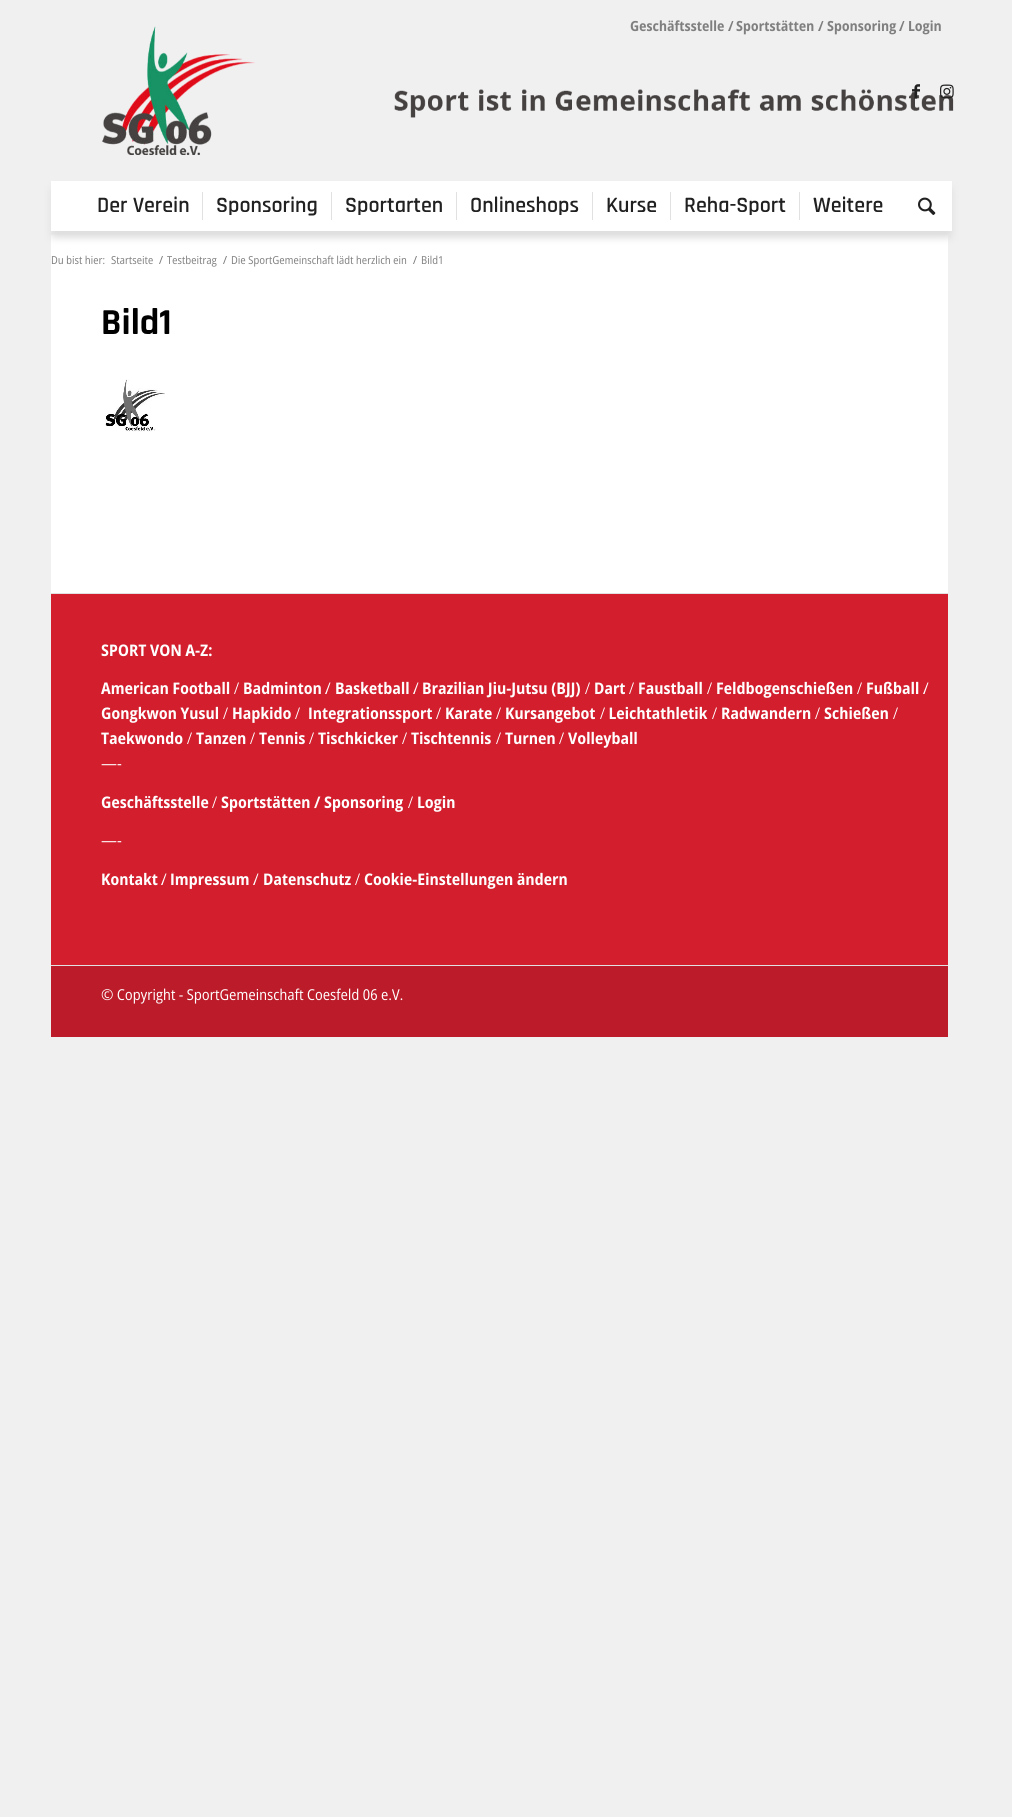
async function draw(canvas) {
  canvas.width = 1012;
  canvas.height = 1817;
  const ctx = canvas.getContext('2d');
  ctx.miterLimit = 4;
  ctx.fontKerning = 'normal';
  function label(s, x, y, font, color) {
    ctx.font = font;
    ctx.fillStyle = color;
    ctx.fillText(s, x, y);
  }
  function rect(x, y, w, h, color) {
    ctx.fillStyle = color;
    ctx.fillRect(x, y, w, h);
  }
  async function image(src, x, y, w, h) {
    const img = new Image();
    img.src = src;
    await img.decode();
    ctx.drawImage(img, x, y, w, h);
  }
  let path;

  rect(0, 0, 1012, 1817, '#f0f0f0');
  await image('assets/img5.png', 102, 26, 852, 129);
  await image('assets/img1.png', 630, 20, 94, 12);
  ctx.fillStyle = '#7f7f7f';
  path = new Path2D('M733.5 21L730 31H728L732 21Z');
  ctx.fill(path);
  await image('assets/img2.png', 736, 20, 78, 15);
  path = new Path2D('M823.5 21L820 31H818L822 21Z');
  ctx.fill(path);
  await image('assets/img3.png', 827, 20, 70, 15);
  path = new Path2D('M904.5 21L901 31H899L903 21Z');
  ctx.fill(path);
  await image('assets/img4.png', 909, 20, 32, 15);
  await image('assets/img6.png', 912, 84, 8, 15);
  await image('assets/img7.png', 940, 84, 14, 15);
  rect(51, 235, 897, 358, '#fff');
  ctx.fillStyle = '#dedede';
  ctx.filter = 'blur(3.5px)';
  ctx.beginPath();
  ctx.rect(51, 188, 901, 50);
  ctx.fill();
  ctx.filter = 'none';
  rect(51, 181, 901, 50, '#fff');
  label('Der Verein', 97, 212, '600 22px Rajdhani', '#212121');
  label('Sponsoring', 216, 212, '600 22px Rajdhani', '#212121');
  rect(202, 192, 1, 28, '#e1e1e1');
  label('Sportarten', 345, 212, '600 22px Rajdhani', '#212121');
  rect(331, 192, 1, 28, '#e1e1e1');
  label('Onlineshops', 470, 212, '600 22px Rajdhani', '#212121');
  rect(456, 192, 1, 28, '#e1e1e1');
  label('Kurse', 606, 212, '600 22px Rajdhani', '#212121');
  rect(592, 192, 1, 28, '#e1e1e1');
  label('Reha-Sport', 684, 212, '600 22px Rajdhani', '#212121');
  rect(670, 192, 1, 28, '#e1e1e1');
  label('Weitere', 813, 212, '600 22px Rajdhani', '#212121');
  rect(799, 192, 1, 28, '#e1e1e1');
  await image('assets/img8.png', 918, 197, 18, 18);
  await image('assets/img9.png', 51, 255, 54, 10);
  await image('assets/img10.png', 111, 256, 42, 9);
  ctx.fillStyle = '#7f7f7f';
  path = new Path2D('M163 256L160 264H159L162 256Z');
  ctx.fill(path);
  await image('assets/img11.png', 167, 255, 50, 12);
  path = new Path2D('M227 256L224 264H223L226 256Z');
  ctx.fill(path);
  await image('assets/img12.png', 231, 255, 176, 12);
  path = new Path2D('M417 256L414 264H413L416 256Z');
  ctx.fill(path);
  await image('assets/img13.png', 421, 255, 21, 10);
  label('Bild1', 101, 334, 'bold 37px Rajdhani', '#000');
  await image('assets/img14.png', 105, 379, 60, 53);
  rect(51, 594, 897, 371, '#d21e2d');
  rect(51, 593, 897, 1, '#e1e1e1');
  await image('assets/img15.png', 101, 644, 111, 13);
  await image('assets/img16.png', 101, 681, 129, 14);
  ctx.fillStyle = '#fff';
  path = new Path2D('M239 682.5L235 694H234L238 682.5Z');
  ctx.fill(path);
  await image('assets/img17.png', 244, 681, 77, 14);
  path = new Path2D('M330.5 682.5L326.5 694H325L329.5 682.5Z');
  ctx.fill(path);
  await image('assets/img18.png', 336, 681, 73, 14);
  path = new Path2D('M418.5 682.5L414.5 694H413L417.5 682.5Z');
  ctx.fill(path);
  await image('assets/img19.png', 423, 681, 157, 17);
  path = new Path2D('M590 682.5L586 694H585L589 682.5Z');
  ctx.fill(path);
  await image('assets/img20.png', 595, 682, 30, 13);
  path = new Path2D('M634 682.5L630 694H629L633 682.5Z');
  ctx.fill(path);
  await image('assets/img21.png', 639, 681, 63, 14);
  path = new Path2D('M712 682.5L708 694H707L711 682.5Z');
  ctx.fill(path);
  await image('assets/img22.png', 717, 681, 136, 17);
  path = new Path2D('M862 682.5L858 694H857L861 682.5Z');
  ctx.fill(path);
  await image('assets/img23.png', 867, 681, 52, 14);
  path = new Path2D('M928.5 682.5L924.5 694H923L927.5 682.5Z');
  ctx.fill(path);
  await image('assets/img24.png', 101, 706, 117, 17);
  path = new Path2D('M228 707.5L224 719H223L227 707.5Z');
  ctx.fill(path);
  await image('assets/img25.png', 233, 706, 58, 17);
  path = new Path2D('M300 707.5L296 719H295L299 707.5Z');
  ctx.fill(path);
  await image('assets/img26.png', 309, 706, 123, 17);
  path = new Path2D('M441 707.5L437 719H436L440 707.5Z');
  ctx.fill(path);
  await image('assets/img27.png', 446, 707, 46, 13);
  path = new Path2D('M501 707.5L497 719H496L500 707.5Z');
  ctx.fill(path);
  await image('assets/img28.png', 506, 706, 89, 17);
  path = new Path2D('M605 707.5L601 719H600L604 707.5Z');
  ctx.fill(path);
  await image('assets/img29.png', 609, 706, 99, 14);
  path = new Path2D('M717 707.5L713 719H712L716 707.5Z');
  ctx.fill(path);
  await image('assets/img30.png', 722, 706, 89, 14);
  path = new Path2D('M820 707.5L816 719H815L819 707.5Z');
  ctx.fill(path);
  await image('assets/img31.png', 824, 706, 64, 14);
  path = new Path2D('M898 707.5L894 719H893L897 707.5Z');
  ctx.fill(path);
  await image('assets/img32.png', 101, 731, 82, 14);
  path = new Path2D('M192 732.5L188 744H187L191 732.5Z');
  ctx.fill(path);
  await image('assets/img33.png', 196, 732, 50, 13);
  path = new Path2D('M255 732.5L251 744H250L254 732.5Z');
  ctx.fill(path);
  await image('assets/img34.png', 259, 731, 46, 14);
  path = new Path2D('M314 732.5L310 744H309L313 732.5Z');
  ctx.fill(path);
  await image('assets/img35.png', 318, 731, 80, 14);
  path = new Path2D('M407 732.5L403 744H402L406 732.5Z');
  ctx.fill(path);
  await image('assets/img36.png', 411, 731, 80, 14);
  path = new Path2D('M501 732.5L497 744H496L500 732.5Z');
  ctx.fill(path);
  await image('assets/img37.png', 505, 732, 50, 13);
  path = new Path2D('M564 732.5L560 744H559L563 732.5Z');
  ctx.fill(path);
  await image('assets/img38.png', 568, 731, 69, 17);
  await image('assets/img39.png', 101, 764, 21, 2);
  await image('assets/img40.png', 101, 795, 108, 14);
  path = new Path2D('M217 796.5L213 808H212L216 796.5Z');
  ctx.fill(path);
  await image('assets/img41.png', 221, 796, 100, 16);
  await image('assets/img42.png', 324, 795, 80, 17);
  path = new Path2D('M413 796.5L409 808H408L412 796.5Z');
  ctx.fill(path);
  await image('assets/img43.png', 418, 795, 37, 17);
  await image('assets/img39.png', 101, 841, 21, 2);
  await image('assets/img44.png', 102, 872, 56, 14);
  path = new Path2D('M166.5 873.5L162.5 885H161L165.5 873.5Z');
  ctx.fill(path);
  await image('assets/img45.png', 171, 873, 78, 16);
  path = new Path2D('M258.5 873.5L254.5 885H253L257.5 873.5Z');
  ctx.fill(path);
  await image('assets/img46.png', 264, 872, 87, 14);
  path = new Path2D('M360 873.5L356 885H355L359 873.5Z');
  ctx.fill(path);
  await image('assets/img47.png', 364, 872, 203, 17);
  rect(51, 966, 897, 71, '#bc1b29');
  rect(51, 965, 897, 1, '#e1e1e1');
  await image('assets/img48.png', 101, 988, 302, 16);
}

draw(document.querySelector('canvas'));
